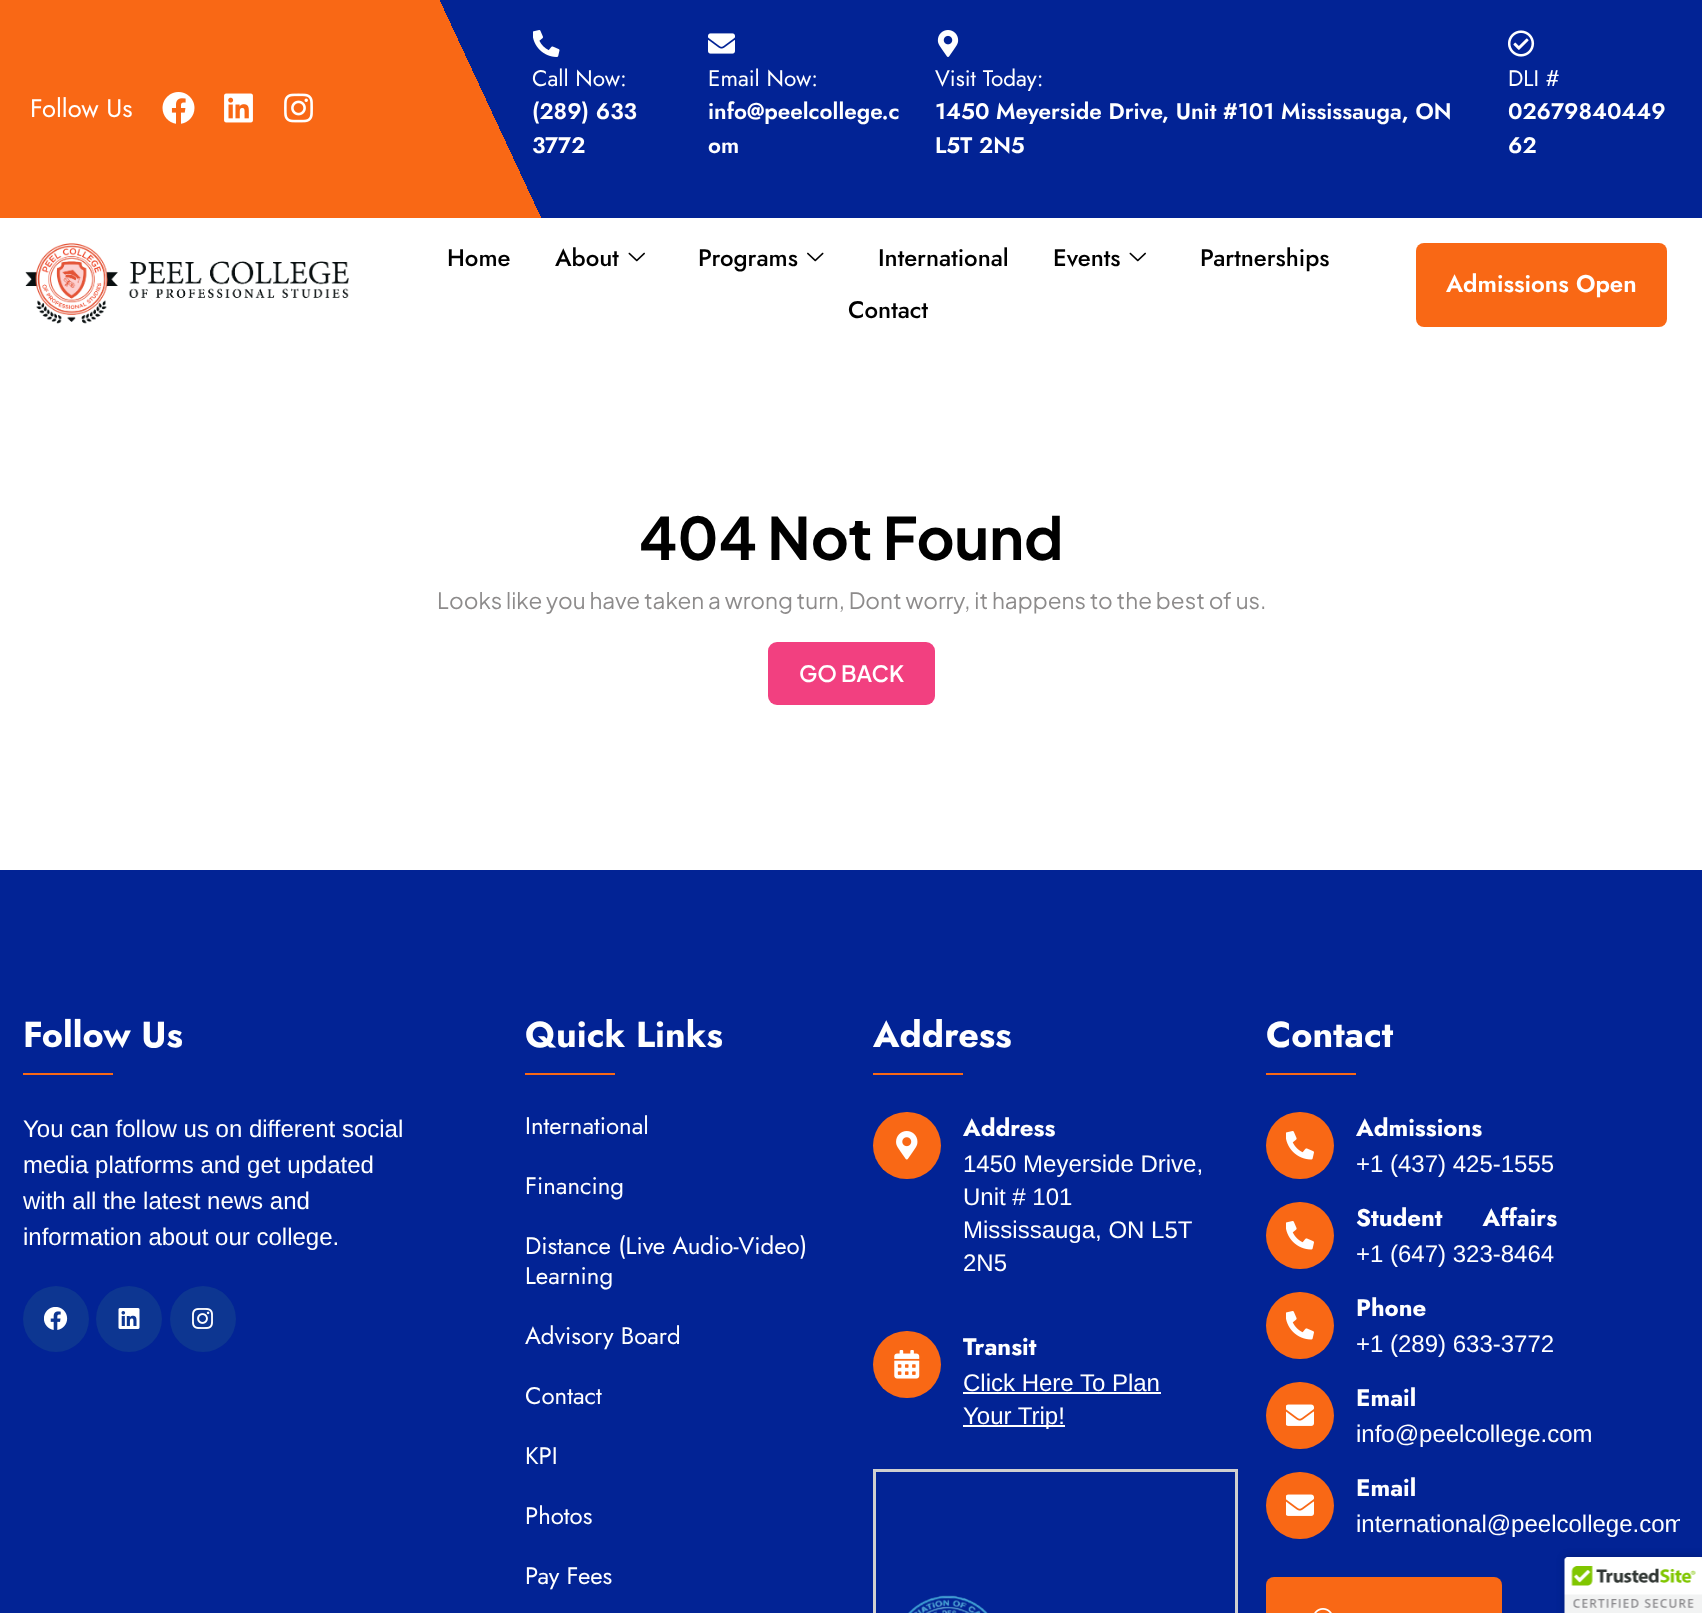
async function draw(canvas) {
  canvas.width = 1702;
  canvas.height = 1613;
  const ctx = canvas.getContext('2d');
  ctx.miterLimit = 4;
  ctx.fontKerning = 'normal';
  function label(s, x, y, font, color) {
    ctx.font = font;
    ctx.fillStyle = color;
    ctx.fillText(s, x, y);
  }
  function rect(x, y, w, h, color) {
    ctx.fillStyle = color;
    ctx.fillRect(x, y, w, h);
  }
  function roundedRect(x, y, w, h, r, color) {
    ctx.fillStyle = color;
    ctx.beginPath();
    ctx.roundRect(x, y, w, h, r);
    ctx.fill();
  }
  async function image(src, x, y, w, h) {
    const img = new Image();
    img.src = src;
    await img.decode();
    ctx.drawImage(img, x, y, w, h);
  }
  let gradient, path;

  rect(0, 0, 1702, 1613, '#fff');
  gradient = ctx.createLinearGradient(110, 454, 1592, -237);
  gradient.addColorStop(0.3, '#f96815');
  gradient.addColorStop(0.3, '#022395');
  ctx.fillStyle = gradient;
  ctx.fillRect(0, 0, 1702, 218);
  label('Follow Us', 30, 117, '25.5px Jost', '#fff');
  await image('assets/img1.png', 162, 92, 33, 32);
  await image('assets/img2.png', 224, 93, 29, 30);
  await image('assets/img3.png', 284, 93, 29, 30);
  await image('assets/img4.png', 533, 30, 27, 27);
  label('Call Now:', 532, 86, '22.5px Jost', '#fff');
  label('(289) 633', 532, 119, '600 22.5px Jost', '#fff');
  label('3772', 532, 153, '600 22.5px Jost', '#fff');
  await image('assets/img5.png', 708, 33, 27, 21);
  label('Email Now:', 708, 86, '22.5px Jost', '#fff');
  label('info@peelcollege.c', 708, 119, '600 22.5px Jost', '#fff');
  label('om', 708, 153, '600 22.5px Jost', '#fff');
  await image('assets/img6.png', 937, 30, 22, 27);
  label('Visit Today:', 935, 86, '22.5px Jost', '#fff');
  label('1450 Meyerside Drive, Unit #101 Mississauga, ON', 935, 119, '600 22.5px Jost', '#fff');
  label('L5T 2N5', 935, 153, '600 22.5px Jost', '#fff');
  await image('assets/img7.png', 1508, 30, 27, 27);
  label('DLI #', 1508, 86, '22.5px Jost', '#fff');
  label('02679840449', 1508, 119, '600 22.5px Jost', '#fff');
  label('62', 1508, 153, '600 22.5px Jost', '#fff');
  await image('assets/img8.png', 25, 243, 324, 81);
  label('Home', 447, 266, '500 24px Jost', '#000');
  label('About', 555, 266, '500 24px Jost', '#000');
  await image('assets/img9.png', 628, 252, 17, 10);
  label('Programs', 698, 266, '500 24px Jost', '#000');
  await image('assets/img10.png', 807, 252, 17, 10);
  label('International', 878, 266, '500 24px Jost', '#000');
  label('Events', 1053, 266, '500 24px Jost', '#000');
  await image('assets/img9.png', 1129, 252, 17, 10);
  label('Partnerships', 1200, 266, '500 24px Jost', '#000');
  label('Contact', 848, 318, '500 24px Jost', '#000');
  roundedRect(1416, 243, 251, 84, 8, '#f96815');
  label('Admissions Open', 1446, 292, '600 24px Jost', '#fff');
  label('404 Not Found', 639, 560, 'bold 58.5px Plus Jakarta Sans', '#000');
  label('Looks like you have taken a wrong turn, Dont worry, it happens to the best of us.', 437, 609, '22.5px Plus Jakarta Sans', '#8d8b8b');
  roundedRect(768, 642, 167, 63, 9, '#f24080');
  label('GO BACK', 799, 682, '600 22.5px Plus Jakarta Sans', '#fff');
  rect(0, 870, 1702, 743, '#022395');
  label('Follow Us', 23, 1047, 'bold 36px Jost', '#fff');
  rect(23, 1073, 90, 2, '#f96815');
  label('You can follow us on different social', 23, 1137, '24px Liberation Sans', '#fff');
  label('media platforms and get updated', 23, 1173, '24px Liberation Sans', '#fff');
  label('with all the latest news and', 23, 1209, '24px Liberation Sans', '#fff');
  label('information about our college.', 23, 1245, '24px Liberation Sans', '#fff');
  ctx.fillStyle = '#0d3691';
  ctx.beginPath();
  ctx.arc(56, 1319, 33, 0, 2 * Math.PI);
  ctx.fill();
  await image('assets/img11.png', 44, 1307, 24, 23);
  ctx.beginPath();
  ctx.arc(129, 1319, 33, 0, 2 * Math.PI);
  ctx.fill();
  await image('assets/img12.png', 118, 1308, 22, 21);
  ctx.beginPath();
  ctx.arc(203, 1319, 33, 0, 2 * Math.PI);
  ctx.fill();
  await image('assets/img13.png', 192, 1308, 21, 21);
  label('Quick Links', 525, 1047, 'bold 36px Jost', '#fff');
  rect(525, 1073, 90, 2, '#f96815');
  label('International', 525, 1134, '24px Jost', '#fff');
  label('Financing', 525, 1194, '24px Jost', '#fff');
  label('Distance (Live Audio-Video)', 525, 1254, '24px Jost', '#fff');
  label('Learning', 525, 1284, '24px Jost', '#fff');
  label('Advisory Board', 525, 1344, '24px Jost', '#fff');
  label('Contact', 525, 1404, '24px Jost', '#fff');
  label('KPI', 525, 1464, '24px Jost', '#fff');
  label('Photos', 525, 1524, '24px Jost', '#fff');
  label('Pay Fees', 525, 1584, '24px Jost', '#fff');
  label('Address', 873, 1047, 'bold 36px Jost', '#fff');
  rect(873, 1073, 90, 2, '#f96815');
  roundedRect(873, 1112, 68, 67, 33.5, '#f96815');
  await image('assets/img14.png', 896, 1131, 22, 29);
  label('Address', 963, 1136, 'bold 24px Jost', '#fff');
  label('1450 Meyerside Drive,', 963, 1172, '24px Liberation Sans', '#fff');
  label('Unit # 101', 963, 1205, '24px Liberation Sans', '#fff');
  label('Mississauga, ON L5T', 963, 1238, '24px Liberation Sans', '#fff');
  label('2N5', 963, 1271, '24px Liberation Sans', '#fff');
  roundedRect(873, 1331, 68, 67, 33.5, '#f96815');
  await image('assets/img15.png', 894, 1350, 26, 29);
  label('Transit', 963, 1355, 'bold 24px Jost', '#fff');
  label('Click Here To Plan', 963, 1391, '24px Liberation Sans', '#fff');
  rect(963, 1392, 198, 2, '#fff');
  rect(963, 1425, 102, 2, '#fff');
  label('Your Trip!', 963, 1424, '24px Liberation Sans', '#fff');
  ctx.strokeStyle = '#cfcfcf';
  ctx.lineWidth = 3;
  ctx.strokeRect(874.5, 1470.5, 362, 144);
  await image('assets/img16.png', 908, 1595, 80, 18);
  label('Contact', 1266, 1047, 'bold 36px Jost', '#fff');
  rect(1266, 1073, 90, 2, '#f96815');
  roundedRect(1266, 1112, 68, 67, 33.5, '#f96815');
  await image('assets/img17.png', 1286, 1131, 28, 29);
  label('Admissions', 1356, 1136, 'bold 24px Jost', '#fff');
  label('+1 (437) 425-1555', 1356, 1172, '24px Liberation Sans', '#fff');
  roundedRect(1266, 1202, 68, 67, 33.5, '#f96815');
  await image('assets/img17.png', 1286, 1221, 28, 29);
  ctx.wordSpacing = '33px';
  label('Student Affairs', 1356, 1226, 'bold 24px Jost', '#fff');
  ctx.wordSpacing = '0px';
  label('+1 (647) 323-8464', 1356, 1262, '24px Liberation Sans', '#fff');
  roundedRect(1266, 1292, 68, 67, 33.5, '#f96815');
  await image('assets/img17.png', 1286, 1311, 28, 29);
  label('Phone', 1356, 1316, 'bold 24px Jost', '#fff');
  label('+1 (289) 633-3772', 1356, 1352, '24px Liberation Sans', '#fff');
  roundedRect(1266, 1382, 68, 67, 33.5, '#f96815');
  await image('assets/img18.png', 1286, 1404, 28, 22);
  label('Email', 1356, 1406, 'bold 24px Jost', '#fff');
  label('info@peelcollege.com', 1356, 1442, '24px Liberation Sans', '#fff');
  roundedRect(1266, 1472, 68, 67, 33.5, '#f96815');
  await image('assets/img18.png', 1286, 1494, 28, 22);
  label('Email', 1356, 1496, 'bold 24px Jost', '#fff');
  ctx.save();
  ctx.beginPath();
  ctx.rect(1266, 1472, 414, 90);
  ctx.clip();
  label('international@peelcollege.com', 1356, 1532, '24px Liberation Sans', '#fff');
  ctx.restore();
  roundedRect(1266, 1577, 236, 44, 8, '#f96815');
  await image('assets/img19.png', 1314, 1608, 18, 5);
  ctx.fillStyle = '#00000033';
  ctx.filter = 'blur(4px)';
  ctx.beginPath();
  ctx.roundRect(1565, 1557, 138, 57, 3);
  ctx.fill();
  ctx.filter = 'none';
  ctx.fillStyle = '#fff';
  path = new Path2D('M1568 1557H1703V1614H1565V1560C1565 1558.5 1566.5 1557 1568 1557Z');
  ctx.fill(path);
  await image('assets/img20.png', 1564, 1557, 138, 56);
}

draw(document.querySelector('canvas'));
